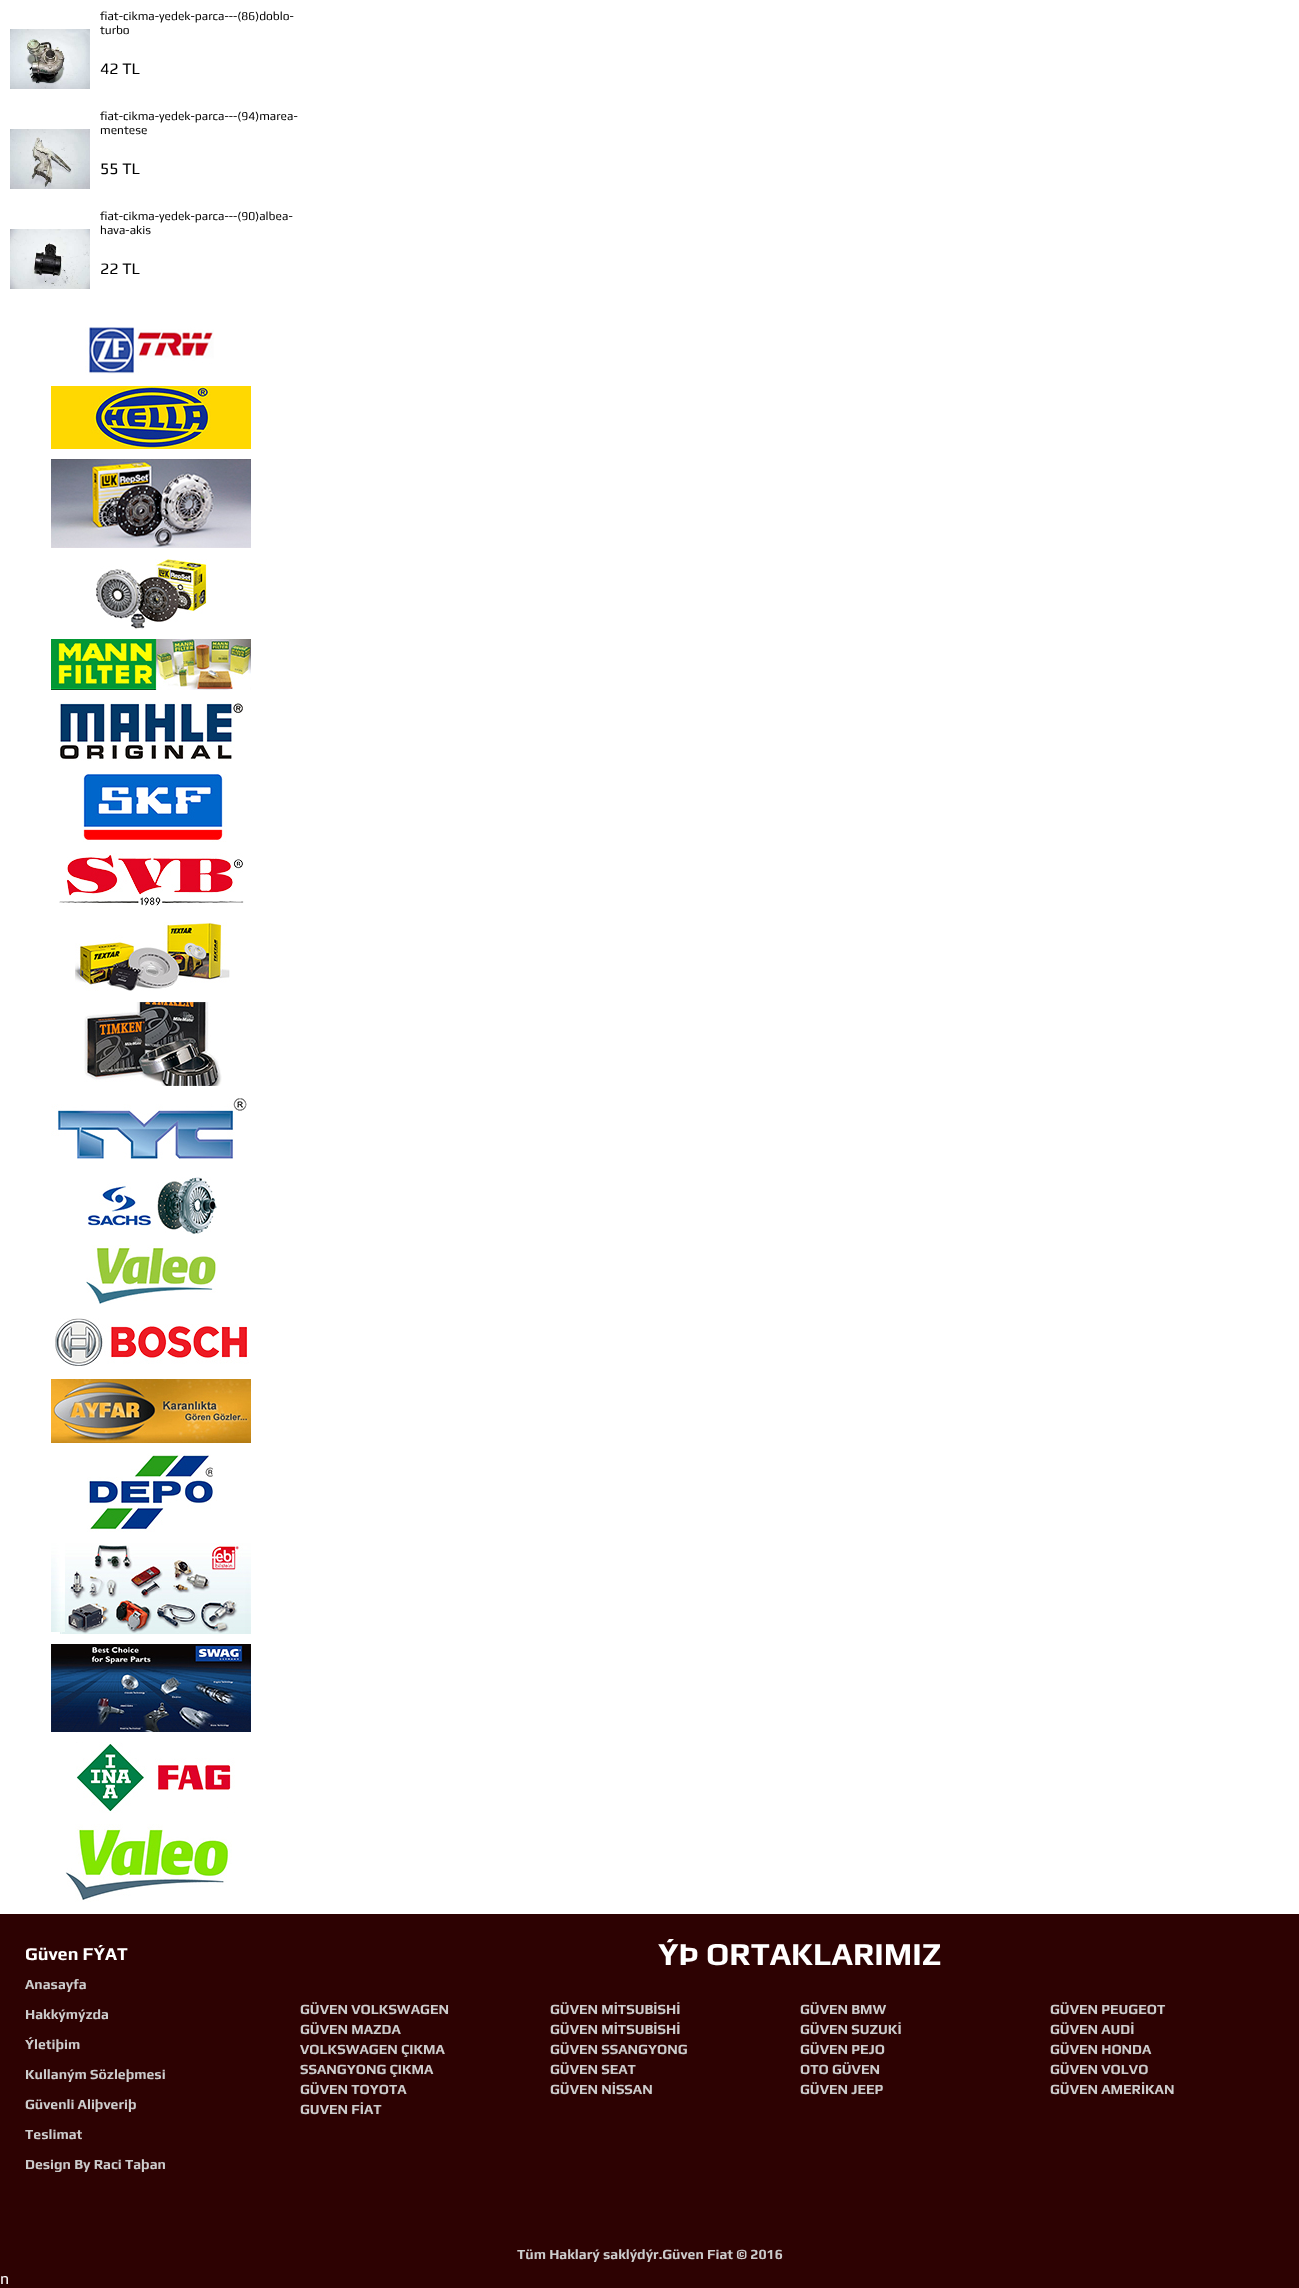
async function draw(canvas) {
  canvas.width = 1299;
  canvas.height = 2288;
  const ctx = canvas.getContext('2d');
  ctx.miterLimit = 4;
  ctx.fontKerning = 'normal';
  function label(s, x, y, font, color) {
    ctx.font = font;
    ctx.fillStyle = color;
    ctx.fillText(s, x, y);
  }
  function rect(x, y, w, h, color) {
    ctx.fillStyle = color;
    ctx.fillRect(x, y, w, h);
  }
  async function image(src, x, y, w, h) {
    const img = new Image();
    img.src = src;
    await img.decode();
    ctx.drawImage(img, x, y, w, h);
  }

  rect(0, 0, 1299, 2288, '#fff');
  label('fiat-cikma-yedek-parca---(86)doblo-', 100, 20, '12px Play', '#000');
  label('turbo', 100, 34, '12px Play', '#000');
  await image('assets/img1.png', 10, 29, 80, 60);
  label('42 TL', 100, 74, '16px Play', '#000');
  label('fiat-cikma-yedek-parca---(94)marea-', 100, 120, '12px Play', '#000');
  label('mentese', 100, 134, '12px Play', '#000');
  await image('assets/img2.png', 10, 129, 80, 60);
  label('55 TL', 100, 174, '16px Play', '#000');
  label('fiat-cikma-yedek-parca---(90)albea-', 100, 220, '12px Play', '#000');
  label('hava-akis', 100, 234, '12px Play', '#000');
  await image('assets/img3.png', 10, 229, 80, 60);
  label('22 TL', 100, 274, '16px Play', '#000');
  await image('assets/img4.png', 85, 327, 129, 48);
  await image('assets/img5.png', 51, 386, 200, 63);
  await image('assets/img6.png', 51, 459, 200, 89);
  await image('assets/img7.png', 96, 559, 111, 70);
  await image('assets/img8.png', 51, 639, 200, 51);
  await image('assets/img9.png', 59, 702, 184, 59);
  await image('assets/img10.png', 83, 774, 144, 68);
  await image('assets/img11.png', 59, 853, 185, 53);
  await image('assets/img12.png', 75, 922, 155, 69);
  await image('assets/img13.png', 84, 1002, 138, 84);
  await image('assets/img14.png', 51, 1098, 196, 61);
  await image('assets/img15.png', 88, 1177, 129, 57);
  await image('assets/img16.png', 86, 1245, 132, 59);
  await image('assets/img17.png', 55, 1318, 194, 48);
  await image('assets/img18.png', 51, 1379, 200, 64);
  await image('assets/img19.png', 87, 1453, 130, 79);
  await image('assets/img20.png', 51, 1543, 200, 91);
  await image('assets/img21.png', 51, 1644, 200, 88);
  await image('assets/img22.png', 76, 1742, 159, 71);
  await image('assets/img23.png', 65, 1824, 167, 78);
  rect(0, 1914, 1299, 374, '#2d0202');
  label('Güven FÝAT', 25, 1960, 'bold 18px Play', '#fff');
  label('Anasayfa', 25, 1989, 'bold 14px Play', '#ccc');
  label('Hakkýmýzda', 25, 2019, 'bold 14px Play', '#ccc');
  label('Ýletiþim', 25, 2049, 'bold 14px Play', '#ccc');
  label('Kullaným Sözleþmesi', 25, 2079, 'bold 14px Play', '#ccc');
  label('Güvenli Aliþveriþ', 25, 2109, 'bold 14px Play', '#ccc');
  label('Teslimat', 25, 2139, 'bold 14px Play', '#ccc');
  label('Design By Raci Taþan', 25, 2169, 'bold 14px Play', '#ccc');
  ctx.save();
  ctx.beginPath();
  ctx.rect(300, 1939, 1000, 300);
  ctx.clip();
  label('ÝÞ ORTAKLARIMIZ', 658, 1965, 'bold 32px Play', '#fff');
  ctx.restore();
  label('GÜVEN VOLKSWAGEN', 300, 2014, 'bold 14px Play', '#ccc');
  label('GÜVEN MİTSUBİSHİ', 550, 2014, 'bold 14px Play', '#ccc');
  label('GÜVEN BMW', 800, 2014, 'bold 14px Play', '#ccc');
  label('GÜVEN PEUGEOT', 1050, 2014, 'bold 14px Play', '#ccc');
  label('GÜVEN MAZDA', 300, 2034, 'bold 14px Play', '#ccc');
  label('GÜVEN MİTSUBİSHİ', 550, 2034, 'bold 14px Play', '#ccc');
  label('GÜVEN SUZUKİ', 800, 2034, 'bold 14px Play', '#ccc');
  label('GÜVEN AUDİ', 1050, 2034, 'bold 14px Play', '#ccc');
  label('VOLKSWAGEN ÇIKMA', 300, 2054, 'bold 14px Play', '#ccc');
  label('GÜVEN SSANGYONG', 550, 2054, 'bold 14px Play', '#ccc');
  label('GÜVEN PEJO', 800, 2054, 'bold 14px Play', '#ccc');
  label('GÜVEN HONDA', 1050, 2054, 'bold 14px Play', '#ccc');
  label('SSANGYONG ÇIKMA', 300, 2074, 'bold 14px Play', '#ccc');
  label('GÜVEN SEAT', 550, 2074, 'bold 14px Play', '#ccc');
  label('OTO GÜVEN', 800, 2074, 'bold 14px Play', '#ccc');
  label('GÜVEN VOLVO', 1050, 2074, 'bold 14px Play', '#ccc');
  label('GÜVEN TOYOTA', 300, 2094, 'bold 14px Play', '#ccc');
  label('GÜVEN NİSSAN', 550, 2094, 'bold 14px Play', '#ccc');
  label('GÜVEN JEEP', 800, 2094, 'bold 14px Play', '#ccc');
  label('GÜVEN AMERİKAN', 1050, 2094, 'bold 14px Play', '#ccc');
  label('GUVEN FİAT', 300, 2114, 'bold 14px Play', '#ccc');
  label('Tüm Haklarý saklýdýr.Güven Fiat © 2016', 517, 2259, 'bold 14px Play', '#ccc');
  label('n', 0, 2284, '16px Play', '#fff');
}

draw(document.querySelector('canvas'));
